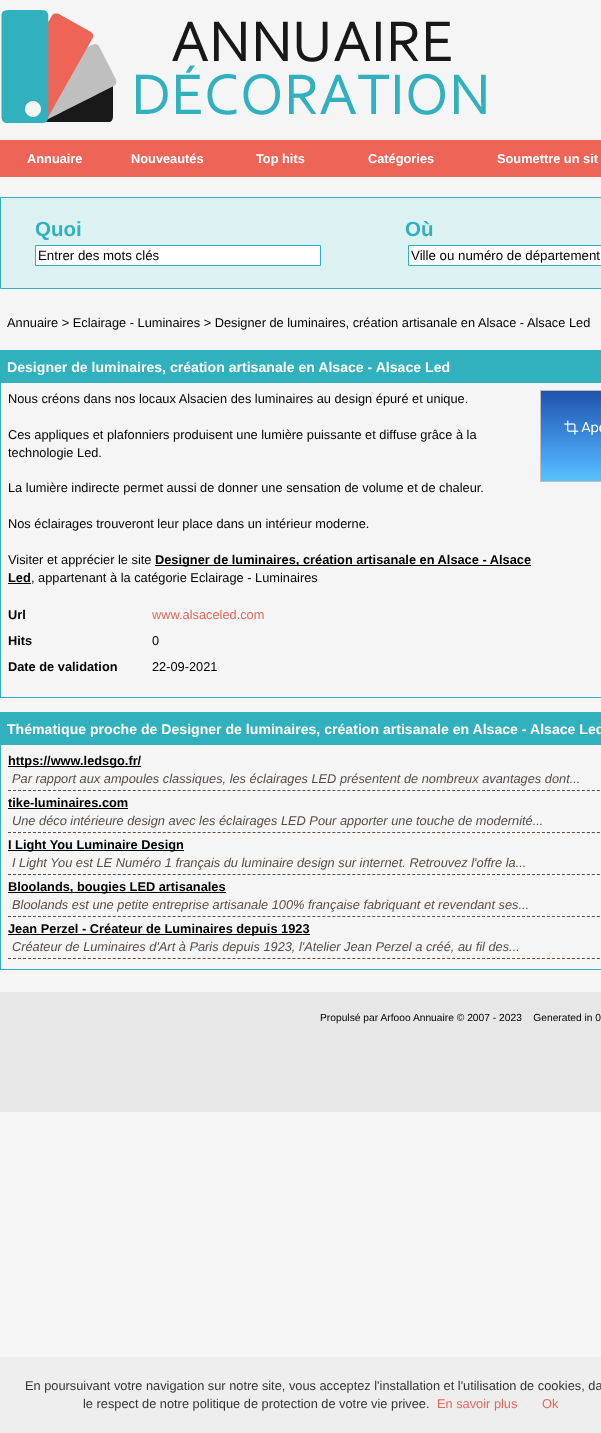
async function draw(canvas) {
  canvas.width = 601;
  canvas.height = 1433;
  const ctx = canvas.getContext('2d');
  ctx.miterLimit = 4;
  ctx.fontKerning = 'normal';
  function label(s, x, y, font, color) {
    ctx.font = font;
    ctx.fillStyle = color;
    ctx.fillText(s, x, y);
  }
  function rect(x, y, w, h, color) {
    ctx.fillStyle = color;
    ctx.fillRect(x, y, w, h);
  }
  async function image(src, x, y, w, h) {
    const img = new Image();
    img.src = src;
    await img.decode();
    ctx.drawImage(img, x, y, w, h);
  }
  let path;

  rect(0, 0, 601, 1433, '#f5f5f5');
  await image('assets/img1.png', 0, 0, 601, 140);
  rect(0, 140, 601, 37, '#ee6558');
  label('Annuaire', 27, 163, 'bold 12.8px Liberation Sans', '#fff');
  label('Nouveautés', 131, 163, 'bold 12.8px Liberation Sans', '#fff');
  label('Top hits', 256, 163, 'bold 12.8px Liberation Sans', '#fff');
  label('Catégories', 368, 163, 'bold 12.8px Liberation Sans', '#fff');
  label('Soumettre un sit', 497, 163, 'bold 12.8px Liberation Sans', '#fff');
  ctx.fillStyle = '#dcf1f1';
  ctx.beginPath();
  ctx.rect(0.5, 197.5, 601, 91);
  ctx.fill();
  ctx.strokeStyle = '#31b0be';
  ctx.stroke();
  label('Quoi', 35, 236, 'bold 20.5px Liberation Sans', '#31b0be');
  label('Où', 405, 236, 'bold 20.5px Liberation Sans', '#31b0be');
  ctx.fillStyle = '#fff';
  ctx.beginPath();
  ctx.rect(35.5, 245.5, 285, 20);
  ctx.fill();
  ctx.stroke();
  label('Entrer des mots clés', 38, 260, '13.3px Liberation Sans', '#000');
  ctx.fillStyle = '#fff';
  ctx.beginPath();
  ctx.rect(408.5, 245.5, 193, 20);
  ctx.fill();
  ctx.stroke();
  label('Ville ou numéro de département', 411, 260, '13.3px Liberation Sans', '#000');
  label('Annuaire > Eclairage - Luminaires > Designer de luminaires, création artisanale en Alsace - Alsace Led', 7, 327, '12.8px Liberation Sans', '#000');
  rect(0, 350, 601, 32, '#31b0be');
  label('Designer de luminaires, création artisanale en Alsace - Alsace Led', 7, 372, 'bold 14.1px Liberation Sans', '#fff');
  ctx.strokeRect(0.5, 382.5, 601, 315);
  label('Nous créons dans nos locaux Alsacien des luminaires au design épuré et unique.', 8, 403, '12.8px Liberation Sans', '#000');
  label('Ces appliques et plafonniers produisent une lumière puissante et diffuse grâce à la', 8, 439, '12.8px Liberation Sans', '#000');
  label('technologie Led.', 8, 457, '12.8px Liberation Sans', '#000');
  label('La lumière indirecte permet aussi de donner une sensation de volume et de chaleur.', 8, 492, '12.8px Liberation Sans', '#000');
  label('Nos éclairages trouveront leur place dans un intérieur moderne.', 8, 528, '12.8px Liberation Sans', '#000');
  label('Visiter et apprécier le site', 8, 564, '12.8px Liberation Sans', '#000');
  rect(155, 565, 376, 1, '#000');
  label('Designer de luminaires, création artisanale en Alsace - Alsace', 155, 564, 'bold 12.8px Liberation Sans', '#000');
  label('Led', 8, 582, 'bold 12.8px Liberation Sans', '#000');
  rect(8, 583, 23, 1, '#000');
  label(', appartenant à la catégorie Eclairage - Luminaires', 31, 582, '12.8px Liberation Sans', '#000');
  label('Url', 8, 619, 'bold 12.8px Liberation Sans', '#000');
  label('www.alsaceled.com', 152, 619, '12.8px Liberation Sans', '#ee6558');
  label('Hits', 8, 645, 'bold 12.8px Liberation Sans', '#000');
  label('0', 152, 645, '12.8px Liberation Sans', '#000');
  label('Date de validation', 8, 671, 'bold 12.8px Liberation Sans', '#000');
  label('22-09-2021', 152, 671, '12.8px Liberation Sans', '#000');
  ctx.strokeStyle = '#bfbfbf';
  ctx.strokeRect(540.5, 390.5, 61, 91);
  await image('assets/img2.png', 541, 391, 60, 90);
  rect(0, 712, 601, 32, '#31b0be');
  label('Thématique proche de Designer de luminaires, création artisanale en Alsace - Alsace Led', 7, 734, 'bold 14.1px Liberation Sans', '#fff');
  ctx.strokeStyle = '#31b0be';
  ctx.strokeRect(0.5, 744.5, 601, 225);
  path = new Path2D('M8 790.5H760');
  ctx.strokeStyle = '#574d44';
  ctx.setLineDash([3, 1.99]);
  ctx.stroke(path);
  rect(8, 766, 133, 1, '#000');
  label('https://www.ledsgo.fr/', 8, 765, 'bold 12.8px Liberation Sans', '#000');
  label('Par rapport aux ampoules classiques, les éclairages LED présentent de nombreux avantages dont...', 12, 783, 'italic 12.8px Liberation Sans', '#574d44');
  path = new Path2D('M8 832.5H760');
  ctx.stroke(path);
  label('tike-luminaires.com', 8, 807, 'bold 12.8px Liberation Sans', '#000');
  rect(8, 808, 120, 1, '#000');
  label('Une déco intérieure design avec les éclairages LED Pour apporter une touche de modernité...', 12, 825, 'italic 12.8px Liberation Sans', '#574d44');
  path = new Path2D('M8 874.5H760');
  ctx.stroke(path);
  rect(8, 850, 176, 1, '#000');
  label('I Light You Luminaire Design', 8, 849, 'bold 12.8px Liberation Sans', '#000');
  label('I Light You est LE Numéro 1 français du luminaire design sur internet. Retrouvez l\'offre la...', 12, 867, 'italic 12.8px Liberation Sans', '#574d44');
  path = new Path2D('M8 916.5H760');
  ctx.stroke(path);
  rect(8, 892, 218, 1, '#000');
  label('Bloolands, bougies LED artisanales', 8, 891, 'bold 12.8px Liberation Sans', '#000');
  label('Bloolands est une petite entreprise artisanale 100% française fabriquant et revendant ses...', 12, 909, 'italic 12.8px Liberation Sans', '#574d44');
  path = new Path2D('M8 958.5H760');
  ctx.stroke(path);
  rect(8, 934, 302, 1, '#000');
  label('Jean Perzel - Créateur de Luminaires depuis 1923', 8, 933, 'bold 12.8px Liberation Sans', '#000');
  label('Créateur de Luminaires d\'Art à Paris depuis 1923, l\'Atelier Jean Perzel a créé, au fil des...', 12, 951, 'italic 12.8px Liberation Sans', '#574d44');
  rect(0, 992, 601, 120, '#e7e7e7');
  label('Propulsé par Arfooo Annuaire © 2007 - 2023    Generated in 0', 320, 1021, '10.25px Liberation Sans', '#000');
  rect(0, 1357, 601, 76, '#eee');
  label('En poursuivant votre navigation sur notre site, vous acceptez l\'installation et l\'utilisation de cookies, da', 25, 1390, '12.8px Liberation Sans', '#333');
  label('le respect de notre politique de protection de votre vie privee.', 83, 1408, '12.8px Liberation Sans', '#333');
  label('En savoir plus', 437, 1408, '12.8px Liberation Sans', '#ee6558');
  label('Ok', 542, 1408, '12.8px Liberation Sans', '#ee6558');
}

draw(document.querySelector('canvas'));
